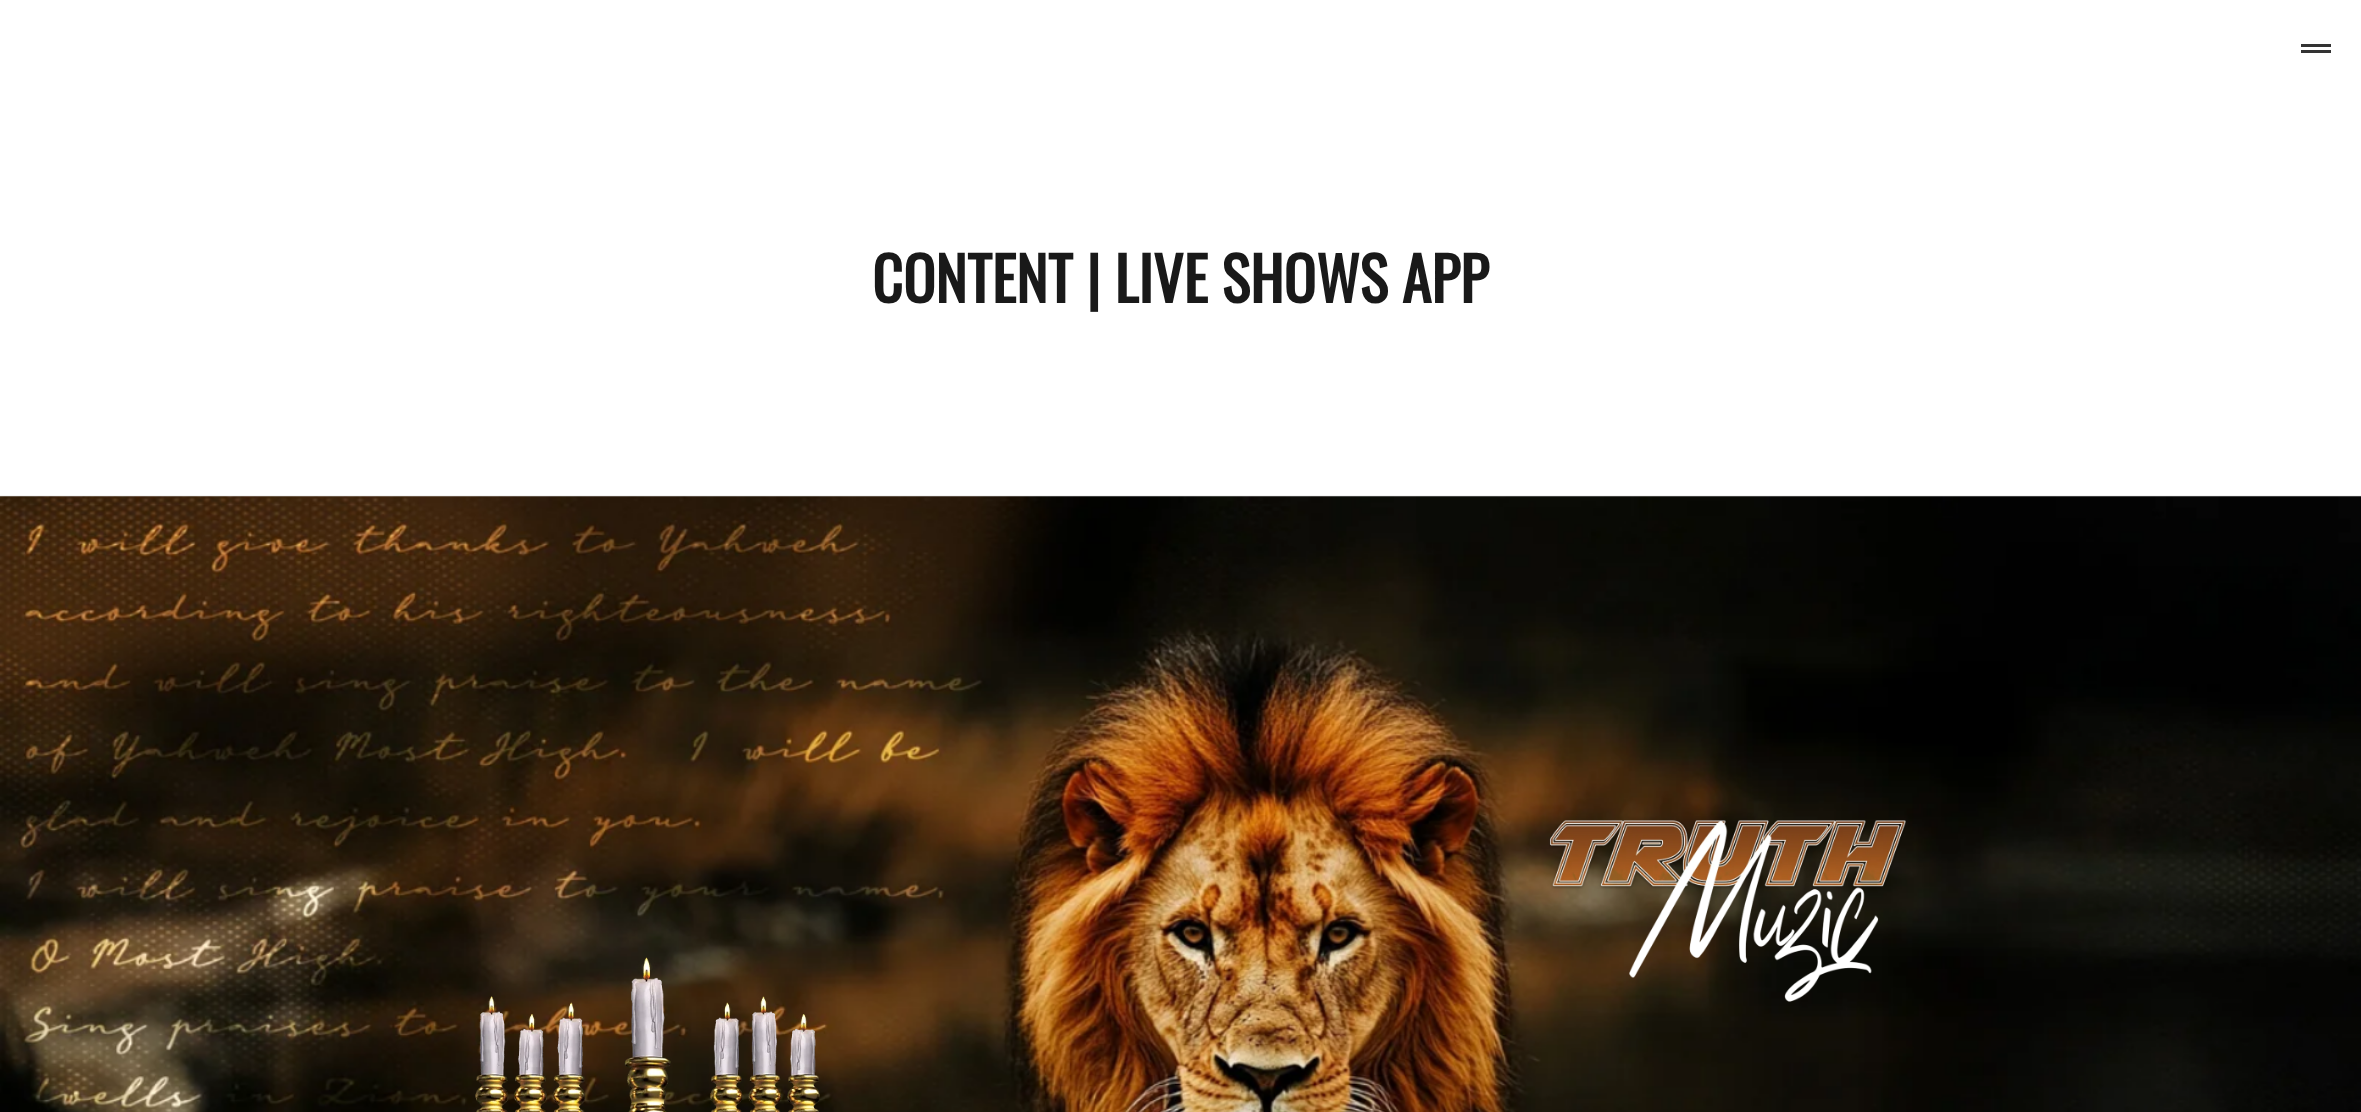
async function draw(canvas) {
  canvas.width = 2361;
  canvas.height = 1112;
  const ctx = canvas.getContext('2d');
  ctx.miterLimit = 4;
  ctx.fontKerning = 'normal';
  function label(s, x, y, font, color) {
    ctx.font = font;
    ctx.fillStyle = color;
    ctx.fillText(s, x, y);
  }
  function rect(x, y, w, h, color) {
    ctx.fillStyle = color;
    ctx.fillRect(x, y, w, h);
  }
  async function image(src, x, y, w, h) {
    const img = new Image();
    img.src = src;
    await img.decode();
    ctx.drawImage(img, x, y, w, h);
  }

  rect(0, 0, 2361, 1112, '#fff');
  rect(2301, 44, 30, 3, '#333');
  rect(2301, 50, 30, 3, '#333');
  rect(0, 495, 2361, 1, '#f5f5f5');
  label('CONTENT | LIVE SHOWS APP', 872, 303, 'bold 60px Oswald', '#191919');
  await image('assets/img1.png', 0, 496, 2361, 616);
  await image('assets/img2.png', 1549, 820, 357, 182);
  await image('assets/img3.png', 475, 957, 345, 155);
}

draw(document.querySelector('canvas'));
